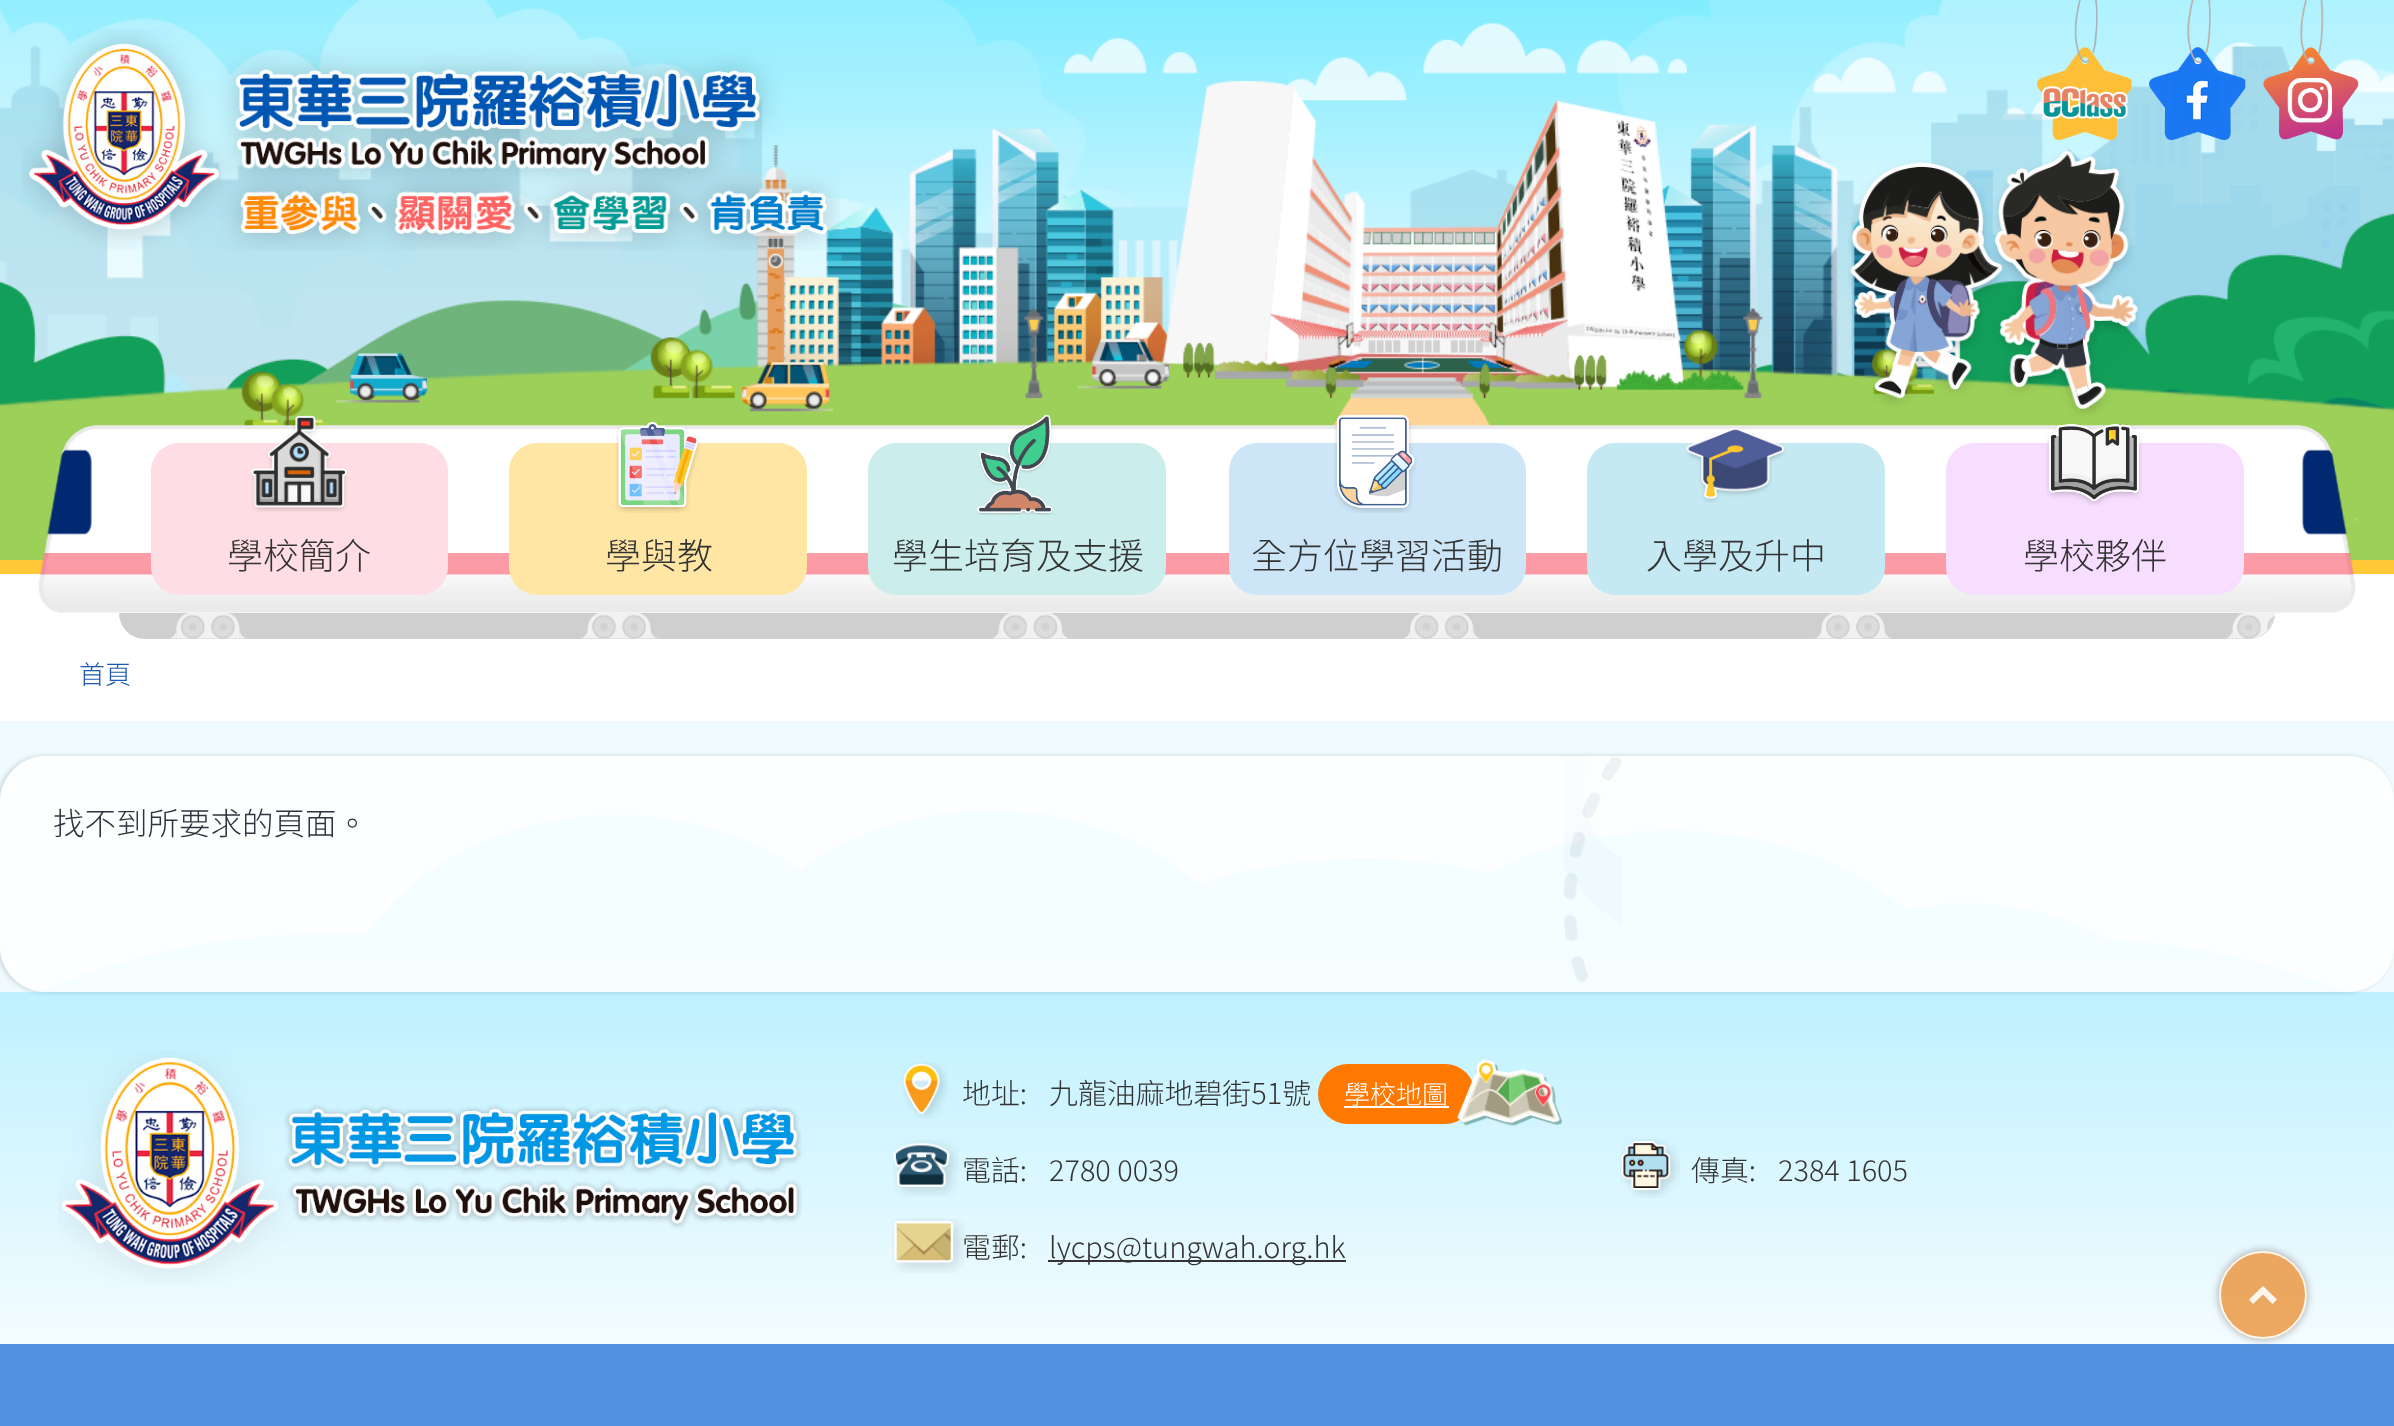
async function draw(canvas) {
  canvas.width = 2394;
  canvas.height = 1426;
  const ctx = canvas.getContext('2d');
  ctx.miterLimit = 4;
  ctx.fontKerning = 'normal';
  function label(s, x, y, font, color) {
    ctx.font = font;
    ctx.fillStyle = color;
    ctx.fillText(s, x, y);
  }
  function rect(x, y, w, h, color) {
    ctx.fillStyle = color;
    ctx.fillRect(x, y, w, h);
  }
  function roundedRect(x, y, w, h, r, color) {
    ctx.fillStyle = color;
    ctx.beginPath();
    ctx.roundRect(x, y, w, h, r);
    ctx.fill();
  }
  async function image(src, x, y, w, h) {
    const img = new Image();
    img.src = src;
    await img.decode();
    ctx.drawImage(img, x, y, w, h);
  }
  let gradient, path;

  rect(0, 0, 2394, 1426, '#effbff');
  await image('assets/img1.png', 0, 0, 2394, 560);
  await image('assets/img2.png', 21, 29, 819, 221);
  await image('assets/img3.png', 1848, 150, 291, 267);
  await image('assets/img4.png', 2037, 0, 95, 140);
  await image('assets/img5.png', 2149, 0, 97, 140);
  await image('assets/img6.png', 2263, 0, 96, 140);
  await image('assets/img7.png', 336, 353, 91, 50);
  await image('assets/img8.png', 742, 362, 91, 50);
  await image('assets/img9.png', 1078, 339, 91, 50);
  rect(0, 574, 2394, 147, '#fff');
  rect(0, 560, 2394, 14, '#ffc837');
  await image('assets/img10.png', 119, 425, 2156, 188);
  await image('assets/img11.png', 38, 425, 81, 188);
  roundedRect(151, 443, 297, 152, 28, '#ffdde4');
  await image('assets/img12.png', 251, 415, 97, 97);
  label('學校簡介', 227, 569, '300 36px Noto Sans TC', '#333');
  roundedRect(509, 443, 298, 152, 28, '#ffe6a4');
  await image('assets/img13.png', 616, 422, 84, 91);
  label('學與教', 605, 569, '300 36px Noto Sans TC', '#333');
  roundedRect(868, 443, 298, 152, 28, '#cbeeec');
  await image('assets/img14.png', 977, 414, 76, 101);
  label('學生培育及支援', 892, 569, '300 36px Noto Sans TC', '#333');
  roundedRect(1229, 443, 297, 152, 28, '#cce6f7');
  await image('assets/img15.png', 1334, 415, 83, 98);
  label('全方位學習活動', 1251, 569, '300 36px Noto Sans TC', '#333');
  roundedRect(1587, 443, 298, 152, 28, '#c5e9f3');
  await image('assets/img16.png', 1686, 428, 99, 75);
  label('入學及升中', 1646, 569, '300 36px Noto Sans TC', '#333');
  roundedRect(1946, 443, 298, 152, 28, '#f7ddff');
  await image('assets/img17.png', 2046, 424, 96, 82);
  label('學校夥伴', 2023, 569, '300 36px Noto Sans TC', '#333');
  await image('assets/img18.png', 2275, 425, 81, 188);
  ctx.fillStyle = '#cfcfcf';
  ctx.beginPath();
  ctx.roundRect(119, 613, 2156, 26, [0, 0, 26, 26]);
  ctx.fill();
  await image('assets/img19.png', 169, 613, 2106, 26);
  label('首頁', 79, 684, '300 26px Noto Sans TC', '#1c58af');
  gradient = ctx.createLinearGradient(1197, 992, 1197, 1344);
  gradient.addColorStop(0, '#bef1ff');
  gradient.addColorStop(1, '#f4fcff');
  ctx.fillStyle = gradient;
  ctx.fillRect(0, 992, 2394, 352);
  await image('assets/img21.png', 19, 800, 2348, 193);
  ctx.save();
  path = new Path2D('M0 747H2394V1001H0ZM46 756H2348C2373.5 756 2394 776.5 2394 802V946C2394 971.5 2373.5 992 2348 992H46C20.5 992 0 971.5 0 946V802C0 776.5 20.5 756 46 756Z');
  ctx.clip(path, 'evenodd');
  ctx.fillStyle = '#0000002b';
  ctx.filter = 'blur(2.5px)';
  ctx.beginPath();
  ctx.roundRect(-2, 756, 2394, 236, 46);
  ctx.fill();
  ctx.filter = 'none';
  ctx.restore();
  roundedRect(0, 756, 2394, 236, 46, '#ffffffd4');
  label('找不到所要求的頁面。', 53, 835, '300 31.5px Noto Sans TC', '#2b353b');
  await image('assets/img20.png', 1564, 757, 58, 225);
  await image('assets/img22.png', 58, 1050, 744, 235);
  await image('assets/img23.png', 903, 1062, 45, 57);
  label('地址:', 962, 1104, '300 28.9px Noto Sans TC', '#333');
  label('九龍油麻地碧街51號', 1049, 1104, '300 28.9px Noto Sans TC', '#333');
  roundedRect(1318, 1064, 157, 60, 30, '#ff7800');
  label('學校地圖', 1344, 1104, '300 26px Noto Sans TC', '#fff');
  rect(1344, 1106, 105, 2, '#fff');
  await image('assets/img24.png', 1457, 1059, 105, 67);
  await image('assets/img25.png', 893, 1140, 66, 57);
  label('電話:', 962, 1181, '300 28.9px Noto Sans TC', '#333');
  label('2780 0039', 1049, 1181, '300 28.9px Noto Sans TC', '#333');
  await image('assets/img26.png', 1620, 1139, 60, 59);
  label('傳真:', 1691, 1181, '300 28.9px Noto Sans TC', '#333');
  label('2384 1605', 1778, 1181, '300 28.9px Noto Sans TC', '#333');
  await image('assets/img27.png', 892, 1218, 73, 55);
  label('電郵:', 962, 1258, '300 28.9px Noto Sans TC', '#333');
  rect(1048, 1260, 298, 2, '#333');
  label('lycps@tungwah.org.hk', 1049, 1258, '300 28.9px Noto Sans TC', '#333');
  rect(0, 1344, 2394, 82, '#5291e0');
  ctx.save();
  path = new Path2D('M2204 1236H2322V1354H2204ZM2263 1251C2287.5 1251 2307 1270.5 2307 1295C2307 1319.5 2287.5 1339 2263 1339C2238.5 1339 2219 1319.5 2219 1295C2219 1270.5 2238.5 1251 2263 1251Z');
  ctx.clip(path, 'evenodd');
  ctx.fillStyle = '#999999e6';
  ctx.filter = 'blur(4.5px)';
  ctx.beginPath();
  ctx.roundRect(2219, 1251, 88, 88, 44);
  ctx.fill();
  ctx.filter = 'none';
  ctx.restore();
  ctx.fillStyle = '#eb9d4fe6';
  ctx.beginPath();
  ctx.arc(2263, 1295, 44, 0, 2 * Math.PI);
  ctx.fill();
  ctx.fillStyle = '#fdf6ef';
  path = new Path2D('M2263 1286L2277 1299.5L2272.5 1304L2263 1294.5L2253 1304L2249 1299.5Z');
  ctx.fill(path);
  ctx.beginPath();
  ctx.arc(2263, 1295, 43, 0, 2 * Math.PI);
  ctx.strokeStyle = '#ffffffe6';
  ctx.lineWidth = 2;
  ctx.stroke();
}

draw(document.querySelector('canvas'));
